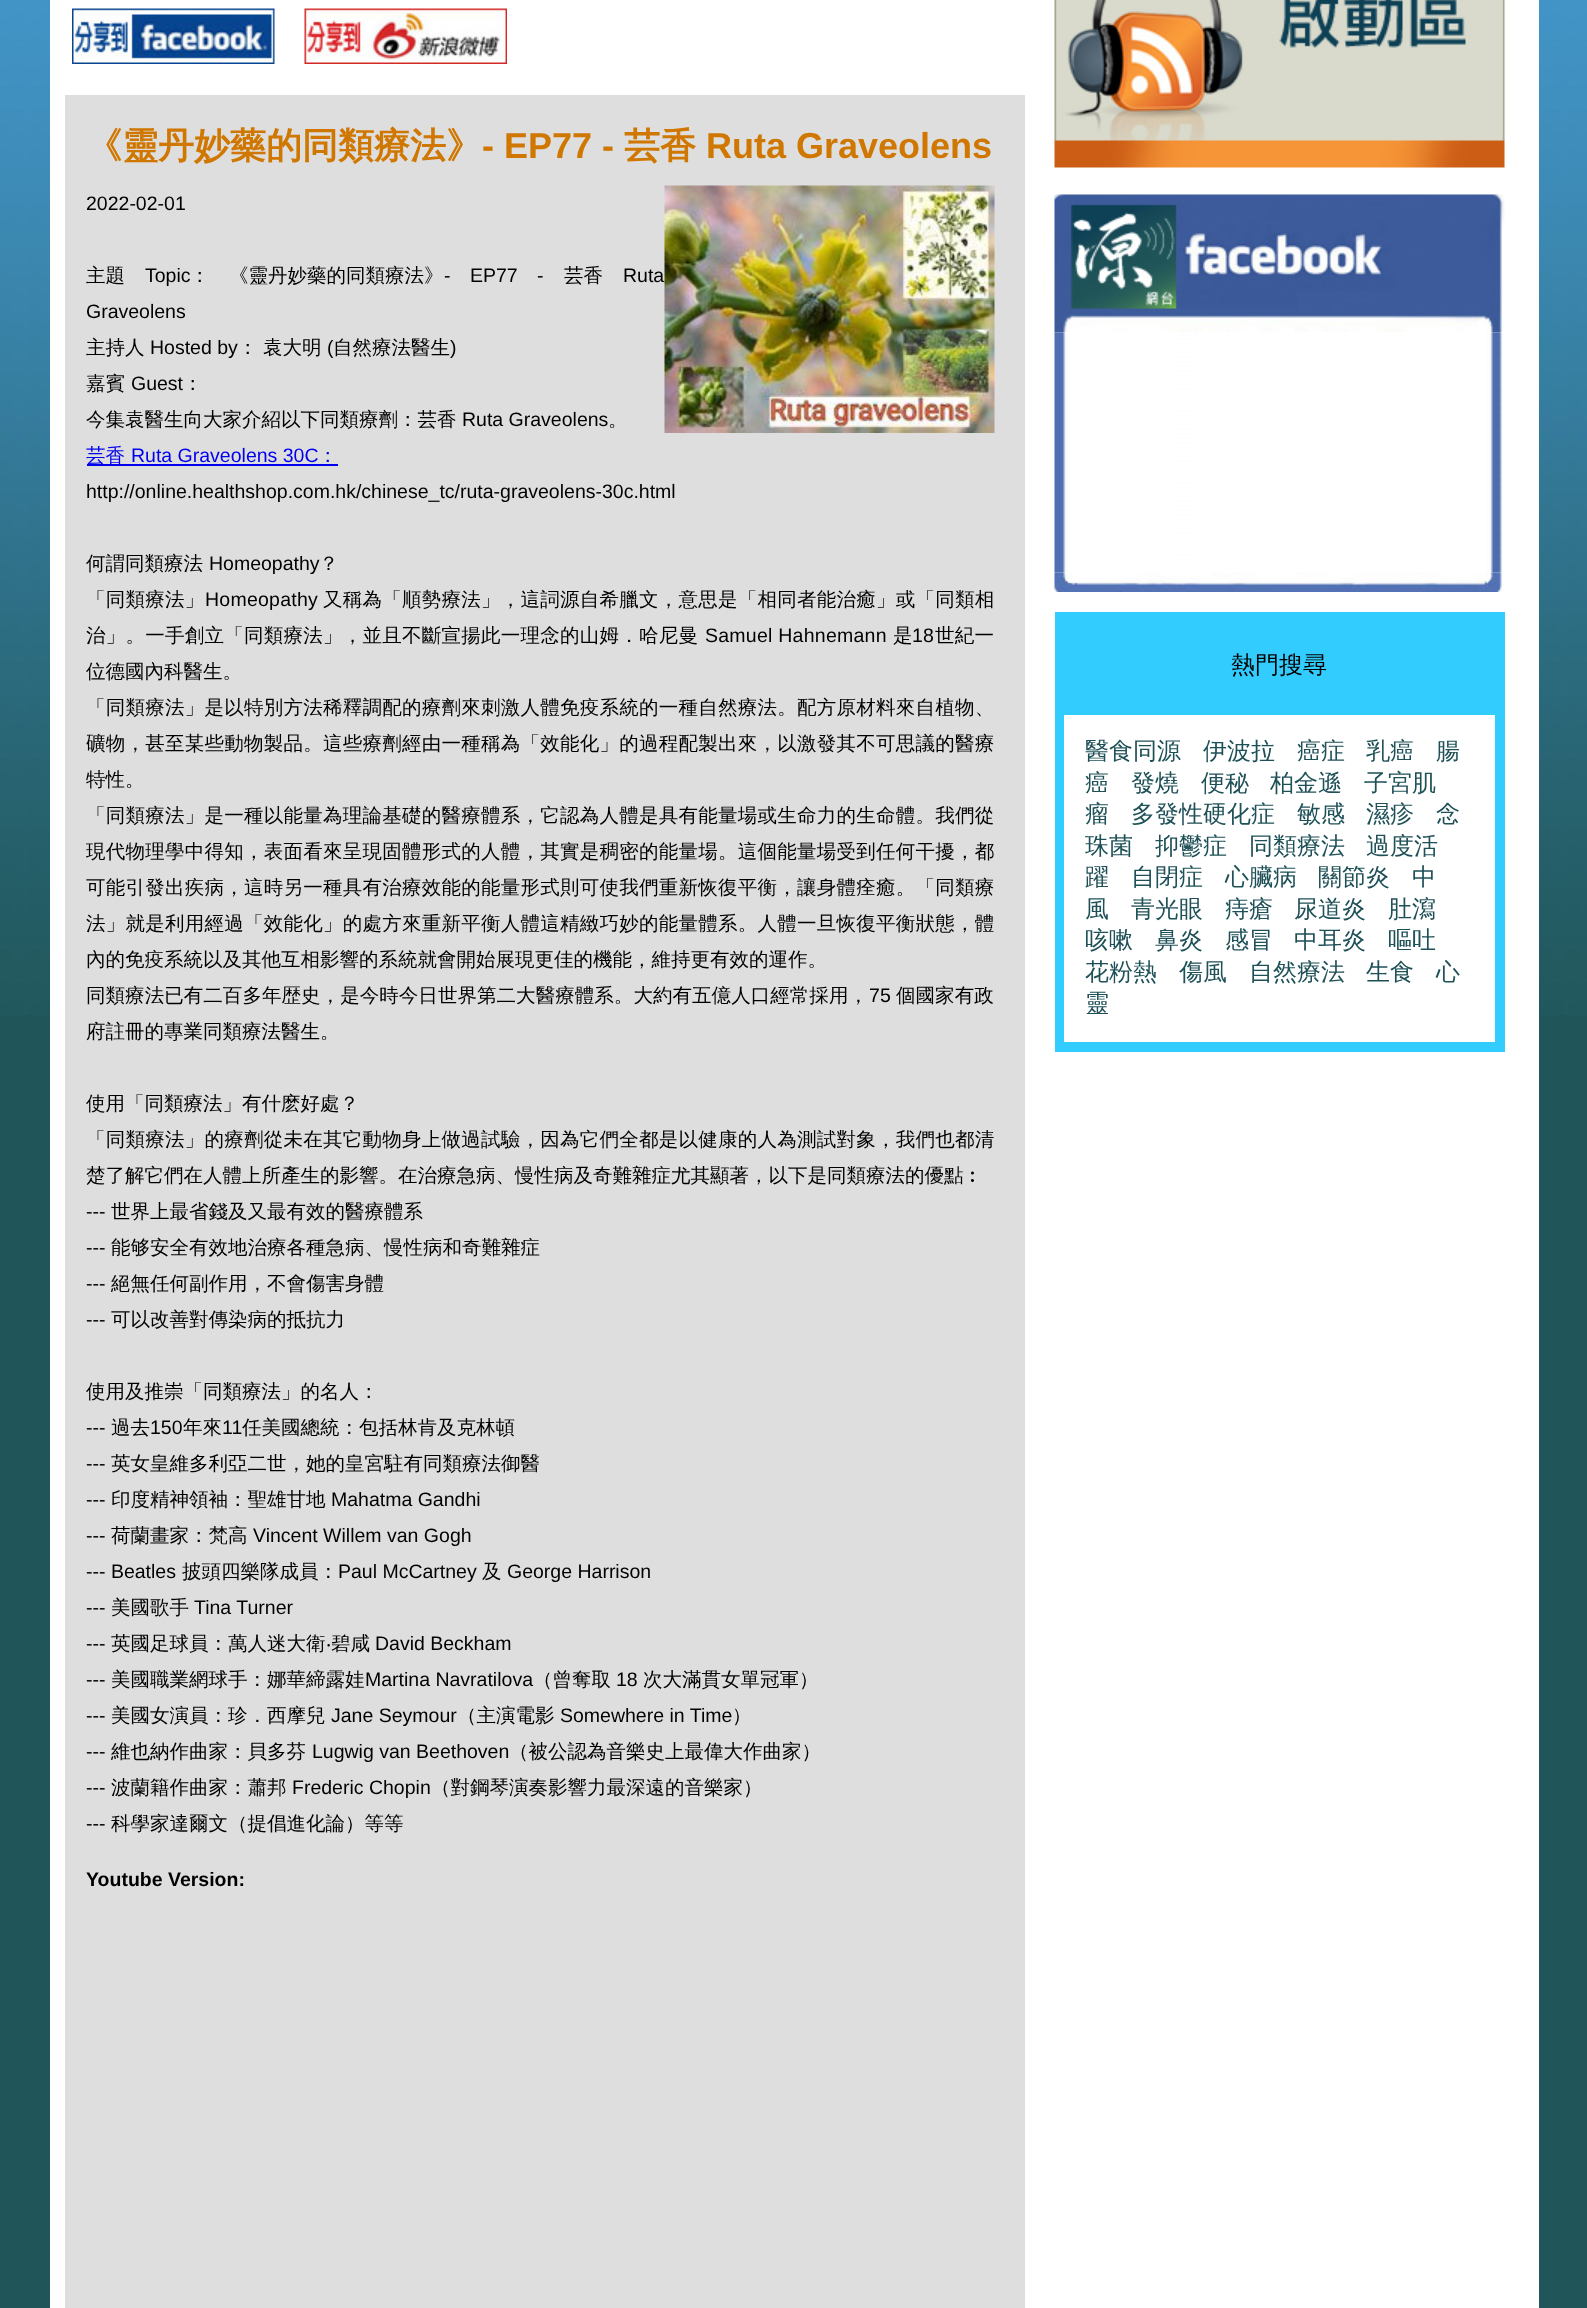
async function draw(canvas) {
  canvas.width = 1587;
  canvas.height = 2308;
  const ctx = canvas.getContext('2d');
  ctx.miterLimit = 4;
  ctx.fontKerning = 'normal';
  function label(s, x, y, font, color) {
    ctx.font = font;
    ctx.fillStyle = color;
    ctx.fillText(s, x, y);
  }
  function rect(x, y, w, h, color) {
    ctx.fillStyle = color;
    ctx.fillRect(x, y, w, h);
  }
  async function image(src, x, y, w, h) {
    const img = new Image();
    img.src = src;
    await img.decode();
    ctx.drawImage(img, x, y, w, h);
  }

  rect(0, 0, 1587, 2308, '#205559');
  await image('assets/img1.png', 0, 0, 1587, 1015);
  rect(50, 0, 1489, 2308, '#fff');
  await image('assets/img2.png', 72, 8, 203, 56);
  await image('assets/img3.png', 304, 8, 203, 56);
  rect(65, 95, 960, 2213, '#dedede');
  label('《靈丹妙藥的同類療法》', 86, 158, 'bold 36px WenQuanYi Zen Hei', '#cf7700');
  label('- EP77 -', 482, 158, 'bold 36px Liberation Sans', '#cf7700');
  label('芸香', 624, 158, 'bold 36px WenQuanYi Zen Hei', '#cf7700');
  label('Ruta Graveolens', 706, 158, 'bold 36px Liberation Sans', '#cf7700');
  label('2022-02-01', 86, 210, '19.5px Liberation Sans', '#000');
  await image('assets/img4.png', 664, 185, 331, 248);
  label('主題', 86, 282, '500 19.5px WenQuanYi Zen Hei', '#000');
  label('Topic', 145, 282, '19.5px Liberation Sans', '#000');
  label('：', 190, 282, '500 19.5px WenQuanYi Zen Hei', '#000');
  label('《靈丹妙藥的同類療法》', 229, 282, '500 19.5px WenQuanYi Zen Hei', '#000');
  ctx.wordSpacing = '14px';
  label('- EP77 -', 444, 282, '19.5px Liberation Sans', '#000');
  ctx.wordSpacing = '0px';
  label('芸香', 564, 282, '500 19.5px WenQuanYi Zen Hei', '#000');
  label('Ruta', 623, 282, '19.5px Liberation Sans', '#000');
  label('Graveolens', 86, 318, '19.5px Liberation Sans', '#000');
  label('主持人', 86, 354, '500 19.5px WenQuanYi Zen Hei', '#000');
  label('Hosted by', 150, 354, '19.5px Liberation Sans', '#000');
  label('：', 238, 354, '500 19.5px WenQuanYi Zen Hei', '#000');
  label('袁大明', 263, 354, '500 19.5px WenQuanYi Zen Hei', '#000');
  label('(', 327, 354, '19.5px Liberation Sans', '#000');
  label('自然療法醫生', 333, 354, '500 19.5px WenQuanYi Zen Hei', '#000');
  label(')', 450, 354, '19.5px Liberation Sans', '#000');
  label('嘉賓', 86, 390, '500 19.5px WenQuanYi Zen Hei', '#000');
  label('Guest', 131, 390, '19.5px Liberation Sans', '#000');
  label('：', 183, 390, '500 19.5px WenQuanYi Zen Hei', '#000');
  label('今集袁醫生向大家介紹以下同類療劑：芸香', 86, 426, '500 19.5px WenQuanYi Zen Hei', '#000');
  label('Ruta Graveolens', 462, 426, '19.5px Liberation Sans', '#000');
  label('。', 608, 426, '500 19.5px WenQuanYi Zen Hei', '#000');
  rect(87, 464, 251, 2, '#00e');
  label('芸香', 86, 462, '500 19.5px WenQuanYi Zen Hei', '#00e');
  label('Ruta Graveolens 30C', 131, 462, '19.5px Liberation Sans', '#00e');
  label('：', 318, 462, '500 19.5px WenQuanYi Zen Hei', '#00e');
  label('http://online.healthshop.com.hk/chinese_tc/ruta-graveolens-30c.html', 86, 498, '19.5px Liberation Sans', '#000');
  label('何謂同類療法', 86, 570, '500 19.5px WenQuanYi Zen Hei', '#000');
  label('Homeopathy', 209, 570, '19.5px Liberation Sans', '#000');
  label('？', 319, 570, '500 19.5px WenQuanYi Zen Hei', '#000');
  ctx.letterSpacing = '0.25px';
  label('「同類療法」', 86, 606, '500 19.5px WenQuanYi Zen Hei', '#000');
  label('Homeopathy', 205, 606, '19.5px Liberation Sans', '#000');
  label('又稱為「順勢療法」，這詞源自希臘文，意思是「相同者能治癒」或「同類相', 323, 606, '500 19.5px WenQuanYi Zen Hei', '#000');
  label('治」。一手創立「同類療法」，並且不斷宣揚此一理念的山姆．哈尼曼', 86, 642, '500 19.5px WenQuanYi Zen Hei', '#000');
  label('Samuel Hahnemann', 705, 642, '19.5px Liberation Sans', '#000');
  label('是', 893, 642, '500 19.5px WenQuanYi Zen Hei', '#000');
  label('18', 912, 642, '19.5px Liberation Sans', '#000');
  label('世紀一', 935, 642, '500 19.5px WenQuanYi Zen Hei', '#000');
  ctx.letterSpacing = '0px';
  label('位德國內科醫生。', 86, 678, '500 19.5px WenQuanYi Zen Hei', '#000');
  ctx.letterSpacing = '0.25px';
  label('「同類療法」是以特別方法稀釋調配的療劑來刺激人體免疫系統的一種自然療法。配方原材料來自植物、', 86, 714, '500 19.5px WenQuanYi Zen Hei', '#000');
  label('礦物，甚至某些動物製品。這些療劑經由一種稱為「效能化」的過程配製出來，以激發其不可思議的醫療', 86, 750, '500 19.5px WenQuanYi Zen Hei', '#000');
  ctx.letterSpacing = '0px';
  label('特性。', 86, 786, '500 19.5px WenQuanYi Zen Hei', '#000');
  ctx.letterSpacing = '0.25px';
  label('「同類療法」是一種以能量為理論基礎的醫療體系，它認為人體是具有能量場或生命力的生命體。我們從', 86, 822, '500 19.5px WenQuanYi Zen Hei', '#000');
  label('現代物理學中得知，表面看來呈現固體形式的人體，其實是稠密的能量場。這個能量場受到任何干擾，都', 86, 858, '500 19.5px WenQuanYi Zen Hei', '#000');
  label('可能引發出疾病，這時另一種具有治療效能的能量形式則可使我們重新恢復平衡，讓身體痊癒。「同類療', 86, 894, '500 19.5px WenQuanYi Zen Hei', '#000');
  label('法」就是利用經過「效能化」的處方來重新平衡人體這精緻巧妙的能量體系。人體一旦恢復平衡狀態，體', 86, 930, '500 19.5px WenQuanYi Zen Hei', '#000');
  ctx.letterSpacing = '0px';
  label('內的免疫系統以及其他互相影響的系統就會開始展現更佳的機能，維持更有效的運作。', 86, 966, '500 19.5px WenQuanYi Zen Hei', '#000');
  ctx.letterSpacing = '0.05px';
  label('同類療法已有二百多年歴史，是今時今日世界第二大醫療體系。大約有五億人口經常採用，', 86, 1002, '500 19.5px WenQuanYi Zen Hei', '#000');
  label('75', 869, 1002, '19.5px Liberation Sans', '#000');
  label('個國家有政', 896, 1002, '500 19.5px WenQuanYi Zen Hei', '#000');
  ctx.letterSpacing = '0px';
  label('府註冊的專業同類療法醫生。', 86, 1038, '500 19.5px WenQuanYi Zen Hei', '#000');
  label('使用「同類療法」有什麽好處？', 86, 1110, '500 19.5px WenQuanYi Zen Hei', '#000');
  ctx.letterSpacing = '0.25px';
  label('「同類療法」的療劑從未在其它動物身上做過試驗，因為它們全都是以健康的人為測試對象，我們也都清', 86, 1146, '500 19.5px WenQuanYi Zen Hei', '#000');
  ctx.letterSpacing = '0px';
  label('楚了解它們在人體上所產生的影響。在治療急病、慢性病及奇難雜症尤其顯著，以下是同類療法的優點︰', 86, 1182, '500 19.5px WenQuanYi Zen Hei', '#000');
  label('---', 86, 1218, '19.5px Liberation Sans', '#000');
  label('世界上最省錢及又最有效的醫療體系', 111, 1218, '500 19.5px WenQuanYi Zen Hei', '#000');
  label('---', 86, 1254, '19.5px Liberation Sans', '#000');
  label('能够安全有效地治療各種急病、慢性病和奇難雜症', 111, 1254, '500 19.5px WenQuanYi Zen Hei', '#000');
  label('---', 86, 1290, '19.5px Liberation Sans', '#000');
  label('絕無任何副作用，不會傷害身體', 111, 1290, '500 19.5px WenQuanYi Zen Hei', '#000');
  label('---', 86, 1326, '19.5px Liberation Sans', '#000');
  label('可以改善對傳染病的抵抗力', 111, 1326, '500 19.5px WenQuanYi Zen Hei', '#000');
  label('使用及推崇「同類療法」的名人：', 86, 1398, '500 19.5px WenQuanYi Zen Hei', '#000');
  label('---', 86, 1434, '19.5px Liberation Sans', '#000');
  label('過去', 111, 1434, '500 19.5px WenQuanYi Zen Hei', '#000');
  label('150', 150, 1434, '19.5px Liberation Sans', '#000');
  label('年來', 183, 1434, '500 19.5px WenQuanYi Zen Hei', '#000');
  label('11', 222, 1434, '19.5px Liberation Sans', '#000');
  label('任美國總統：包括林肯及克林頓', 242, 1434, '500 19.5px WenQuanYi Zen Hei', '#000');
  label('---', 86, 1470, '19.5px Liberation Sans', '#000');
  label('英女皇維多利亞二世，她的皇宮駐有同類療法御醫', 111, 1470, '500 19.5px WenQuanYi Zen Hei', '#000');
  label('---', 86, 1506, '19.5px Liberation Sans', '#000');
  label('印度精神領袖：聖雄甘地', 111, 1506, '500 19.5px WenQuanYi Zen Hei', '#000');
  label('Mahatma Gandhi', 331, 1506, '19.5px Liberation Sans', '#000');
  label('---', 86, 1542, '19.5px Liberation Sans', '#000');
  label('荷蘭畫家：梵高', 111, 1542, '500 19.5px WenQuanYi Zen Hei', '#000');
  label('Vincent Willem van Gogh', 253, 1542, '19.5px Liberation Sans', '#000');
  label('--- Beatles', 86, 1578, '19.5px Liberation Sans', '#000');
  label('披頭四樂隊成員：', 182, 1578, '500 19.5px WenQuanYi Zen Hei', '#000');
  label('Paul McCartney', 338, 1578, '19.5px Liberation Sans', '#000');
  label('及', 482, 1578, '500 19.5px WenQuanYi Zen Hei', '#000');
  label('George Harrison', 507, 1578, '19.5px Liberation Sans', '#000');
  label('---', 86, 1614, '19.5px Liberation Sans', '#000');
  label('美國歌手', 111, 1614, '500 19.5px WenQuanYi Zen Hei', '#000');
  label('Tina Turner', 194, 1614, '19.5px Liberation Sans', '#000');
  label('---', 86, 1650, '19.5px Liberation Sans', '#000');
  label('英國足球員：萬人迷大衛', 111, 1650, '500 19.5px WenQuanYi Zen Hei', '#000');
  label('‧', 326, 1650, '19.5px Noto Sans', '#000');
  label('碧咸', 331, 1650, '500 19.5px WenQuanYi Zen Hei', '#000');
  label('David Beckham', 375, 1650, '19.5px Liberation Sans', '#000');
  label('---', 86, 1686, '19.5px Liberation Sans', '#000');
  label('美國職業網球手：娜華締露娃', 111, 1686, '500 19.5px WenQuanYi Zen Hei', '#000');
  label('Martina Navratilova', 365, 1686, '19.5px Liberation Sans', '#000');
  label('（曾奪取', 533, 1686, '500 19.5px WenQuanYi Zen Hei', '#000');
  label('18', 616, 1686, '19.5px Liberation Sans', '#000');
  label('次大滿貫女單冠軍）', 643, 1686, '500 19.5px WenQuanYi Zen Hei', '#000');
  label('---', 86, 1722, '19.5px Liberation Sans', '#000');
  label('美國女演員：珍．西摩兒', 111, 1722, '500 19.5px WenQuanYi Zen Hei', '#000');
  label('Jane Seymour', 331, 1722, '19.5px Liberation Sans', '#000');
  label('（主演電影', 457, 1722, '500 19.5px WenQuanYi Zen Hei', '#000');
  label('Somewhere in Time', 560, 1722, '19.5px Liberation Sans', '#000');
  label('）', 732, 1722, '500 19.5px WenQuanYi Zen Hei', '#000');
  label('---', 86, 1758, '19.5px Liberation Sans', '#000');
  label('維也納作曲家：貝多芬', 111, 1758, '500 19.5px WenQuanYi Zen Hei', '#000');
  label('Lugwig van Beethoven', 312, 1758, '19.5px Liberation Sans', '#000');
  label('（被公認為音樂史上最偉大作曲家）', 509, 1758, '500 19.5px WenQuanYi Zen Hei', '#000');
  label('---', 86, 1794, '19.5px Liberation Sans', '#000');
  label('波蘭籍作曲家：蕭邦', 111, 1794, '500 19.5px WenQuanYi Zen Hei', '#000');
  label('Frederic Chopin', 292, 1794, '19.5px Liberation Sans', '#000');
  label('（對鋼琴演奏影響力最深遠的音樂家）', 431, 1794, '500 19.5px WenQuanYi Zen Hei', '#000');
  label('---', 86, 1830, '19.5px Liberation Sans', '#000');
  label('科學家達爾文（提倡進化論）等等', 111, 1830, '500 19.5px WenQuanYi Zen Hei', '#000');
  label('Youtube Version:', 86, 1886, 'bold 19.5px Liberation Sans', '#000');
  await image('assets/img5.png', 1054, 0, 451, 168);
  await image('assets/img6.png', 1054, 194, 451, 139);
  await image('assets/img7.png', 1054, 332, 448, 241);
  await image('assets/img8.png', 1054, 572, 450, 20);
  ctx.strokeStyle = '#3cf';
  ctx.lineWidth = 8;
  ctx.strokeRect(1059, 616, 442, 432);
  rect(1063, 620, 434, 93, '#3cf');
  label('熱門搜尋', 1231, 673, '500 24px WenQuanYi Zen Hei', '#000');
  ctx.lineWidth = 2;
  ctx.strokeRect(1063, 714, 433, 329);
  label('醫食同源', 1085, 759, '500 24px WenQuanYi Zen Hei', '#1e5057');
  label('伊波拉', 1203, 759, '500 24px WenQuanYi Zen Hei', '#1e5057');
  label('癌症', 1297, 759, '500 24px WenQuanYi Zen Hei', '#1e5057');
  label('乳癌', 1366, 759, '500 24px WenQuanYi Zen Hei', '#1e5057');
  label('腸', 1436, 759, '500 24px WenQuanYi Zen Hei', '#1e5057');
  label('癌', 1085, 791, '500 24px WenQuanYi Zen Hei', '#1e5057');
  label('發燒', 1131, 791, '500 24px WenQuanYi Zen Hei', '#1e5057');
  label('便秘', 1201, 791, '500 24px WenQuanYi Zen Hei', '#1e5057');
  label('柏金遜', 1270, 791, '500 24px WenQuanYi Zen Hei', '#1e5057');
  label('子宮肌', 1364, 791, '500 24px WenQuanYi Zen Hei', '#1e5057');
  label('瘤', 1085, 822, '500 24px WenQuanYi Zen Hei', '#1e5057');
  label('多發性硬化症', 1131, 822, '500 24px WenQuanYi Zen Hei', '#1e5057');
  label('敏感', 1297, 822, '500 24px WenQuanYi Zen Hei', '#1e5057');
  label('濕疹', 1366, 822, '500 24px WenQuanYi Zen Hei', '#1e5057');
  label('念', 1436, 822, '500 24px WenQuanYi Zen Hei', '#1e5057');
  label('珠菌', 1085, 854, '500 24px WenQuanYi Zen Hei', '#1e5057');
  label('抑鬱症', 1155, 854, '500 24px WenQuanYi Zen Hei', '#1e5057');
  label('同類療法', 1249, 854, '500 24px WenQuanYi Zen Hei', '#1e5057');
  label('過度活', 1366, 854, '500 24px WenQuanYi Zen Hei', '#1e5057');
  label('躍', 1085, 885, '500 24px WenQuanYi Zen Hei', '#1e5057');
  label('自閉症', 1131, 885, '500 24px WenQuanYi Zen Hei', '#1e5057');
  label('心臟病', 1225, 885, '500 24px WenQuanYi Zen Hei', '#1e5057');
  label('關節炎', 1318, 885, '500 24px WenQuanYi Zen Hei', '#1e5057');
  label('中', 1412, 885, '500 24px WenQuanYi Zen Hei', '#1e5057');
  label('風', 1085, 917, '500 24px WenQuanYi Zen Hei', '#1e5057');
  label('青光眼', 1131, 917, '500 24px WenQuanYi Zen Hei', '#1e5057');
  label('痔瘡', 1225, 917, '500 24px WenQuanYi Zen Hei', '#1e5057');
  label('尿道炎', 1294, 917, '500 24px WenQuanYi Zen Hei', '#1e5057');
  label('肚瀉', 1388, 917, '500 24px WenQuanYi Zen Hei', '#1e5057');
  label('咳嗽', 1085, 948, '500 24px WenQuanYi Zen Hei', '#1e5057');
  label('鼻炎', 1155, 948, '500 24px WenQuanYi Zen Hei', '#1e5057');
  label('感冒', 1225, 948, '500 24px WenQuanYi Zen Hei', '#1e5057');
  label('中耳炎', 1294, 948, '500 24px WenQuanYi Zen Hei', '#1e5057');
  label('嘔吐', 1388, 948, '500 24px WenQuanYi Zen Hei', '#1e5057');
  label('花粉熱', 1085, 980, '500 24px WenQuanYi Zen Hei', '#1e5057');
  label('傷風', 1179, 980, '500 24px WenQuanYi Zen Hei', '#1e5057');
  label('自然療法', 1249, 980, '500 24px WenQuanYi Zen Hei', '#1e5057');
  label('生食', 1366, 980, '500 24px WenQuanYi Zen Hei', '#1e5057');
  label('心', 1436, 980, '500 24px WenQuanYi Zen Hei', '#1e5057');
  label('靈', 1085, 1011, '500 24px WenQuanYi Zen Hei', '#1e5057');
}

draw(document.querySelector('canvas'));
